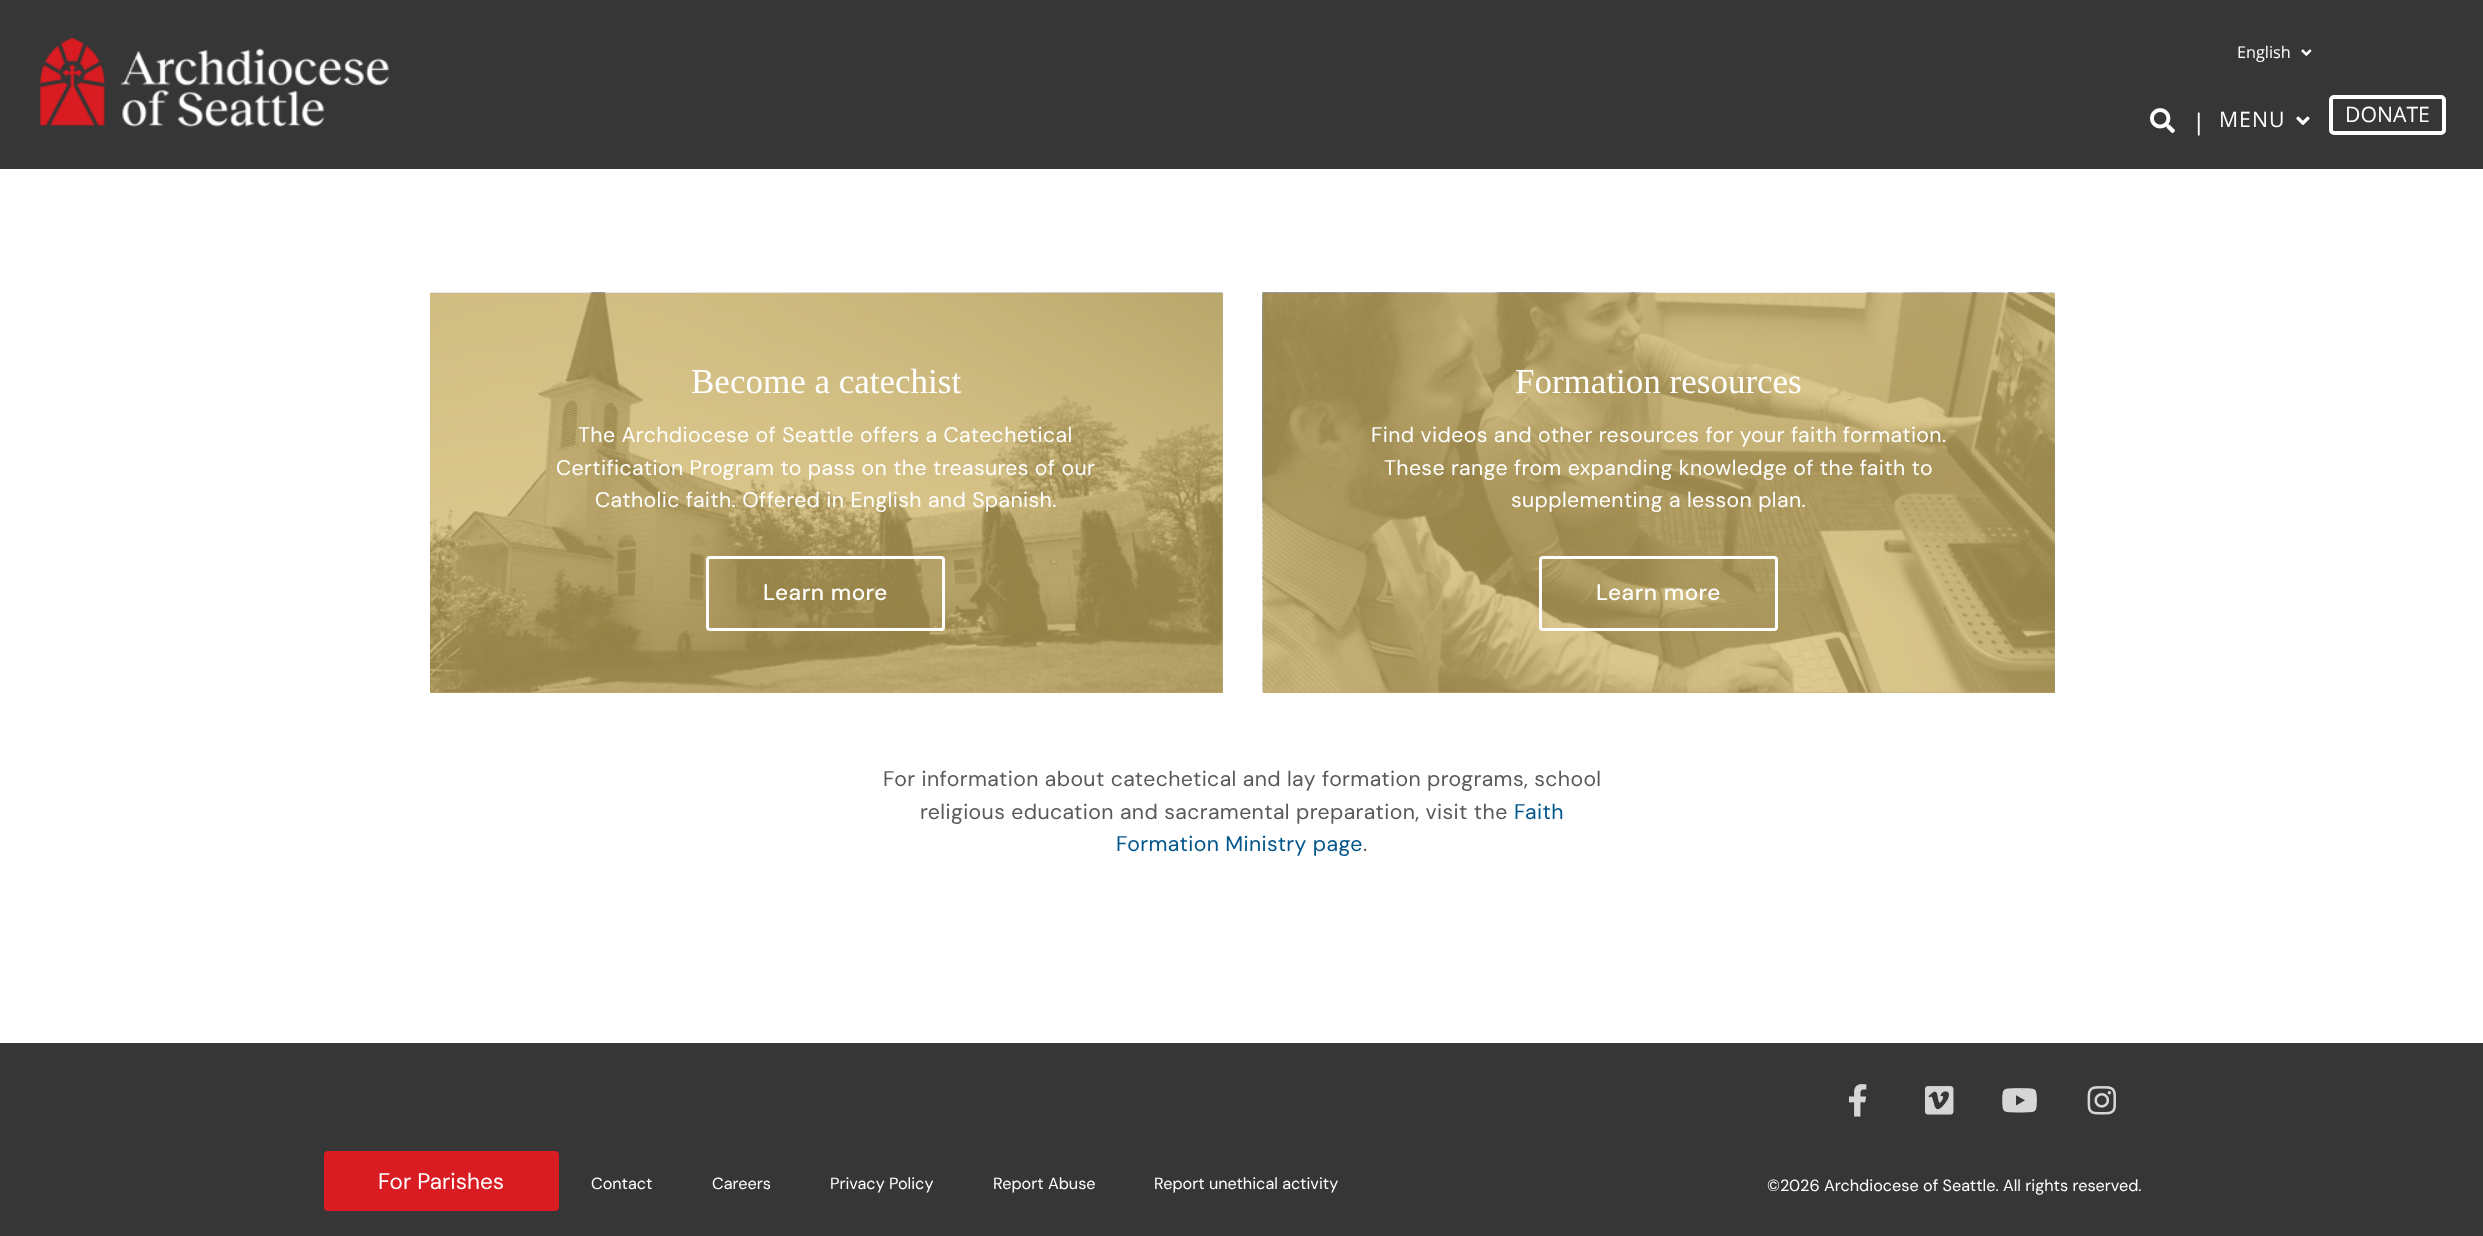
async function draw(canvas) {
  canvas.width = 2483;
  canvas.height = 1236;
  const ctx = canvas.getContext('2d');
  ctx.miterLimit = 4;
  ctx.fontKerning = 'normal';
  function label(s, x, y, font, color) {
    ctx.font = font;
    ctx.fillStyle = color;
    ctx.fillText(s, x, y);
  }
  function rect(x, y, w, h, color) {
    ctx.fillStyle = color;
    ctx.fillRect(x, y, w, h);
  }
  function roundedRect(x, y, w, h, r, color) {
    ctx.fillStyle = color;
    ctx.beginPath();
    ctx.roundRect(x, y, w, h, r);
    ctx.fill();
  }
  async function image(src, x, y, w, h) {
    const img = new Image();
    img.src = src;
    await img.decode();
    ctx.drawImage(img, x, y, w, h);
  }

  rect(0, 0, 2483, 1236, '#fff');
  rect(0, 0, 2483, 169, '#363636');
  await image('assets/img1.png', 39, 37, 350, 90);
  await image('assets/img2.png', 2150, 108, 25, 26);
  label('|', 2196, 130, 'bold 25px Liberation Serif', '#fff');
  label('English', 2237, 58, '16.25px Open Sans', '#fff');
  await image('assets/img3.png', 2301, 49, 11, 7);
  ctx.letterSpacing = '1px';
  label('MENU', 2219, 127, '21.25px Open Sans', '#fff');
  await image('assets/img4.png', 2296, 116, 14, 9);
  ctx.beginPath();
  ctx.roundRect(2331, 97, 113, 36, 3);
  ctx.strokeStyle = '#fff';
  ctx.lineWidth = 4;
  ctx.stroke();
  ctx.letterSpacing = '0px';
  label('DONATE', 2345, 122, '21.25px Open Sans', '#fff');
  rect(430, 293, 793, 400, '#c0ac71');
  await image('assets/img5.png', 430, 292, 793, 401);
  label('Become a catechist', 691, 393, '35px Liberation Serif', '#fff');
  ctx.letterSpacing = '0.38px';
  label('The Archdiocese of Seattle offers a Catechetical', 578, 442, '21.25px DM Sans', '#fff');
  label('Certification Program to pass on the treasures of our', 556, 475, '21.25px DM Sans', '#fff');
  label('Catholic faith. Offered in English and Spanish.', 595, 507, '21.25px DM Sans', '#fff');
  ctx.beginPath();
  ctx.roundRect(707.5, 557.5, 236, 72, 2.5);
  ctx.lineWidth = 3;
  ctx.stroke();
  ctx.letterSpacing = '0.5px';
  label('Learn more', 763, 600, '500 22.5px DM Sans', '#fff');
  rect(1263, 692, 792, 1, '#c0ac71');
  await image('assets/img6.png', 1262, 292, 793, 401);
  ctx.letterSpacing = '0px';
  label('Formation resources', 1515, 393, '35px Liberation Serif', '#fff');
  ctx.letterSpacing = '0.38px';
  label('Find videos and other resources for your faith formation.', 1371, 442, '21.25px DM Sans', '#fff');
  label('These range from expanding knowledge of the faith to', 1384, 475, '21.25px DM Sans', '#fff');
  label('supplementing a lesson plan.', 1511, 507, '21.25px DM Sans', '#fff');
  ctx.beginPath();
  ctx.roundRect(1540.5, 557.5, 236, 72, 2.5);
  ctx.stroke();
  ctx.letterSpacing = '0.5px';
  label('Learn more', 1596, 600, '500 22.5px DM Sans', '#fff');
  ctx.letterSpacing = '0.38px';
  label('For information about catechetical and lay formation programs, school', 883, 786, '21.25px DM Sans', '#595959');
  label('religious education and sacramental preparation, visit the', 920, 819, '21.25px DM Sans', '#595959');
  label('Faith', 1514, 819, '21.25px DM Sans', '#00558a');
  label('Formation Ministry page', 1116, 851, '21.25px DM Sans', '#00558a');
  label('.', 1363, 851, '21.25px DM Sans', '#595959');
  rect(0, 1043, 2483, 193, '#363636');
  roundedRect(324, 1151, 235, 60, 4, '#d91b22');
  ctx.letterSpacing = '0px';
  label('For Parishes', 378, 1189, '22.5px DM Sans', '#fff');
  label('Contact', 591, 1189, '16.25px DM Sans', '#fff');
  label('Careers', 712, 1189, '16.25px DM Sans', '#fff');
  label('Privacy Policy', 830, 1189, '16.25px DM Sans', '#fff');
  label('Report Abuse', 993, 1189, '16.25px DM Sans', '#fff');
  label('Report unethical activity', 1154, 1189, '16.25px DM Sans', '#fff');
  await image('assets/img7.png', 1848, 1084, 19, 33);
  await image('assets/img8.png', 1925, 1086, 29, 29);
  await image('assets/img9.png', 2002, 1088, 35, 25);
  await image('assets/img10.png', 2087, 1086, 29, 29);
  label('©2026 Archdiocese of Seattle. All rights reserved.', 1767, 1191, '16.25px DM Sans', '#fff');
}

draw(document.querySelector('canvas'));
